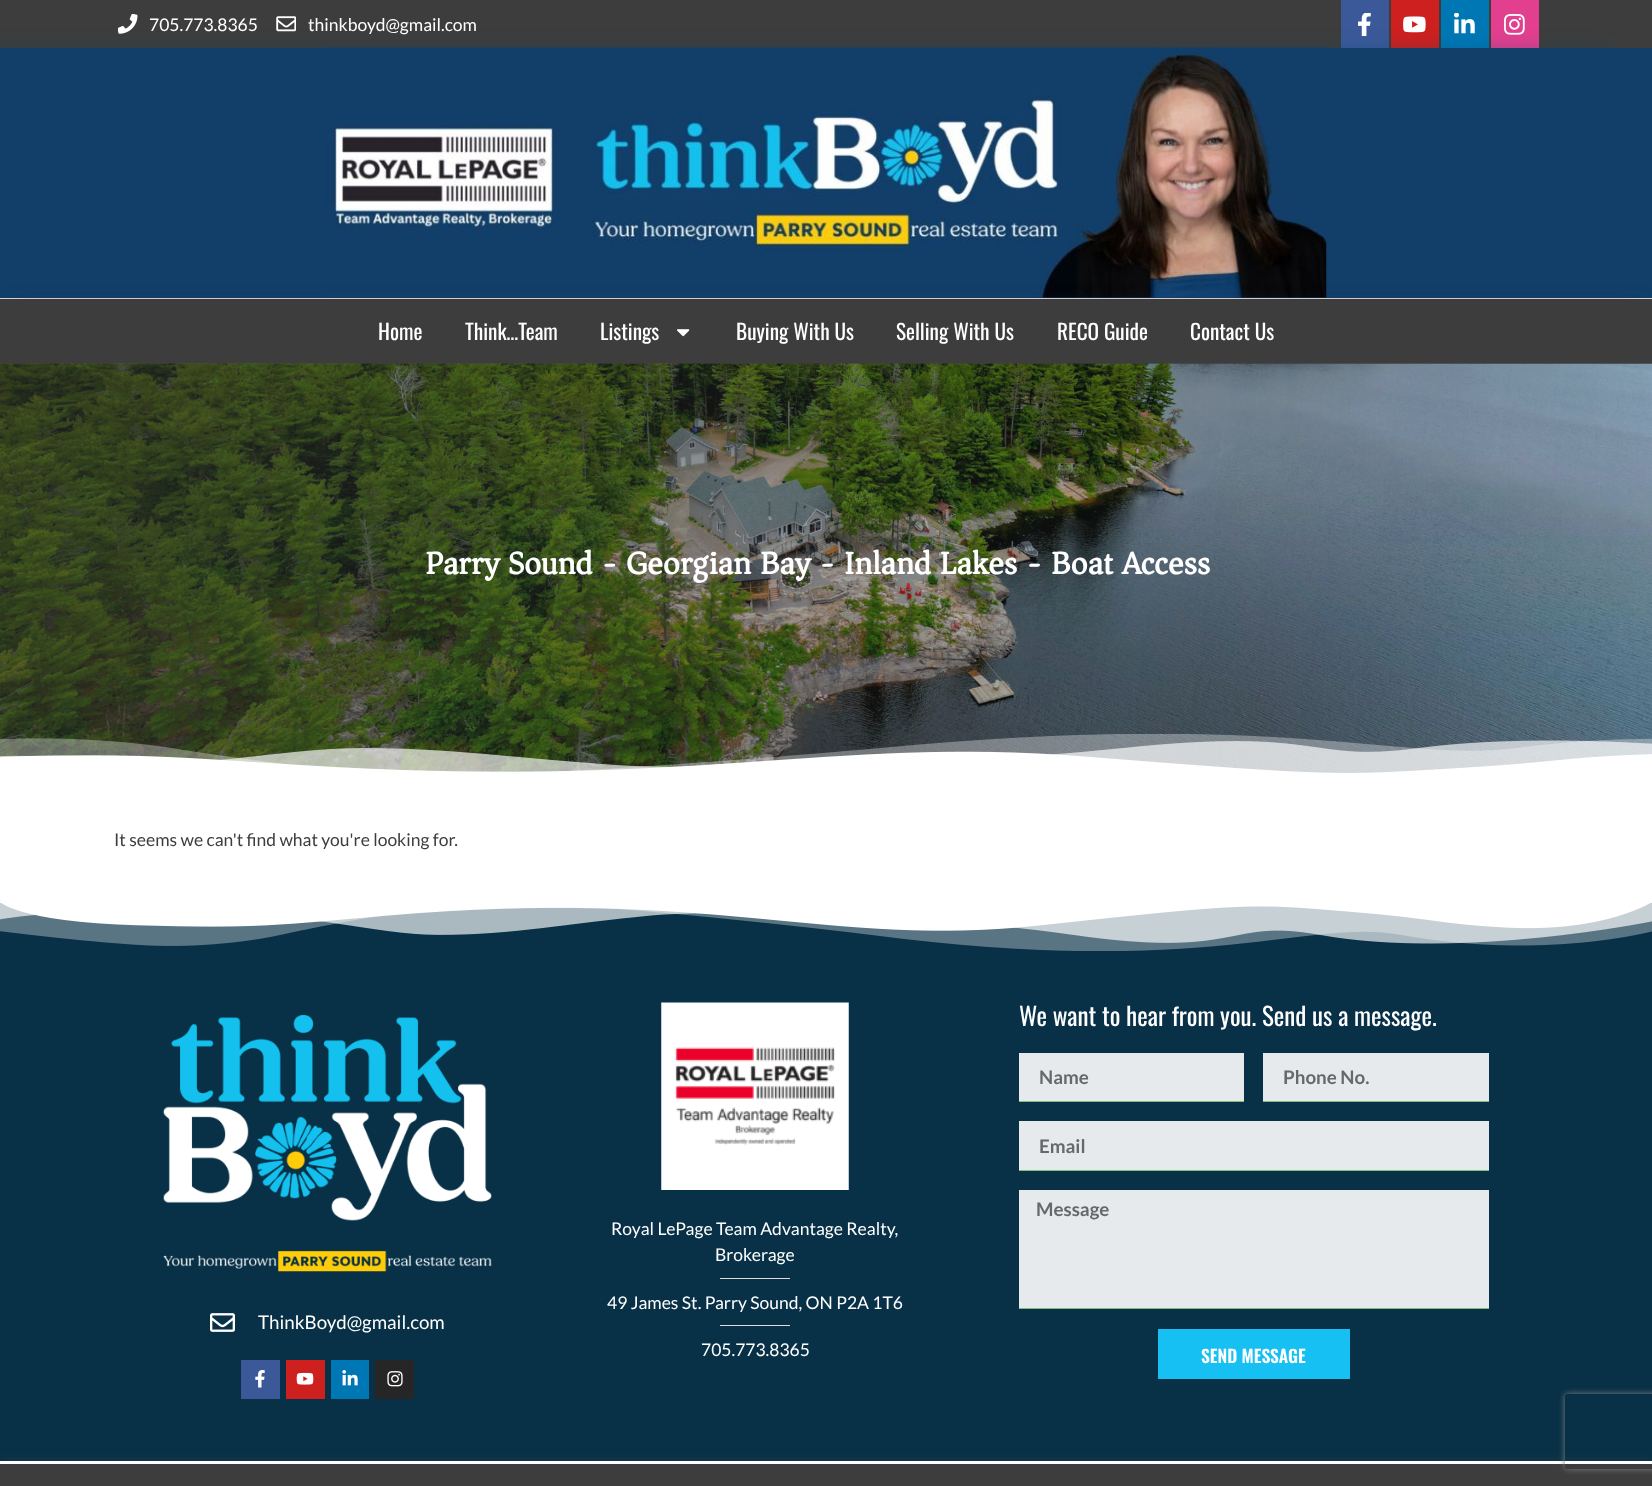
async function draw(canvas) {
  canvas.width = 1652;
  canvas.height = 1486;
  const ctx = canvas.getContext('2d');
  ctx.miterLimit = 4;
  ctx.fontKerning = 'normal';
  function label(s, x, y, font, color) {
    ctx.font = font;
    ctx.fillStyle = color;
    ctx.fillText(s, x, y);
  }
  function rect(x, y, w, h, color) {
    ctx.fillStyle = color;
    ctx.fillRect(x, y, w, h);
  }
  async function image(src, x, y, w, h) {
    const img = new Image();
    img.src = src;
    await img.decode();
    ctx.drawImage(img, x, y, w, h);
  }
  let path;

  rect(0, 0, 1652, 1486, '#fff');
  rect(0, 0, 1652, 48, '#3d3d3d');
  await image('assets/img1.png', 118, 14, 20, 20);
  label('705.773.8365', 149, 31, '17.5px Lato', '#fff');
  await image('assets/img2.png', 276, 16, 20, 16);
  label('thinkboyd@gmail.com', 308, 31, '17.5px Lato', '#fff');
  rect(1341, 0, 48, 48, '#3b5998');
  await image('assets/img3.png', 1358, 13, 13, 23);
  rect(1391, 0, 48, 48, '#cd201f');
  await image('assets/img4.png', 1403, 16, 23, 17);
  rect(1441, 0, 48, 48, '#0077b5');
  await image('assets/img5.png', 1454, 13, 21, 21);
  rect(1491, 0, 48, 48, '#e23f8e');
  await image('assets/img6.png', 1504, 14, 21, 21);
  ctx.fillStyle = '#004971';
  ctx.filter = 'blur(13px)';
  ctx.beginPath();
  ctx.rect(-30, 61, 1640, 239);
  ctx.fill();
  ctx.filter = 'none';
  rect(0, 298, 1652, 1, '#d8d8d8');
  rect(0, 48, 1652, 250, '#113f69');
  await image('assets/img7.png', 326, 47, 1001, 251);
  ctx.fillStyle = '#33336861';
  ctx.filter = 'blur(13px)';
  ctx.beginPath();
  ctx.rect(6, 313, 1640, 52);
  ctx.fill();
  ctx.filter = 'none';
  rect(0, 299, 1652, 65, '#3d3d3d');
  label('Home', 378, 340, '21.25px Oswald', '#fff');
  label('Think…Team', 465, 340, '21.25px Oswald', '#fff');
  label('Listings', 600, 340, '21.25px Oswald', '#fff');
  await image('assets/img8.png', 677, 329, 13, 8);
  label('Buying With Us', 736, 340, '21.25px Oswald', '#fff');
  label('Selling With Us', 896, 340, '21.25px Oswald', '#fff');
  label('RECO Guide', 1057, 340, '21.25px Oswald', '#fff');
  label('Contact Us', 1190, 340, '21.25px Oswald', '#fff');
  await image('assets/img9.png', 0, 363, 1652, 410);
  label('Parry Sound - Georgian Bay - Inland Lakes - Boat Access', 425, 574, 'bold 32.5px Asar', '#fff');
  await image('assets/img10.png', 0, 734, 1652, 43);
  label('It seems we can\'t find what you\'re looking for.', 114, 846, '17.5px Lato', '#3d3d3d');
  rect(0, 903, 1652, 558, '#083046');
  await image('assets/img11.png', 0, 903, 1652, 48);
  await image('assets/img12.png', 163, 1015, 329, 257);
  await image('assets/img13.png', 210, 1313, 25, 19);
  label('ThinkBoyd@gmail.com', 258, 1329, '18.75px Lato', '#fff');
  rect(241, 1360, 39, 39, '#3b5998');
  await image('assets/img14.png', 255, 1370, 10, 18);
  rect(286, 1360, 39, 39, '#cd201f');
  await image('assets/img15.png', 296, 1372, 18, 13);
  rect(331, 1360, 38, 39, '#0077b5');
  await image('assets/img16.png', 342, 1370, 16, 16);
  rect(375, 1360, 39, 39, '#262626');
  await image('assets/img17.png', 387, 1371, 16, 16);
  await image('assets/img18.png', 661, 1002, 188, 188);
  label('Royal LePage Team Advantage Realty,', 611, 1235, '17.5px Lato', '#fff');
  label('Brokerage', 715, 1261, '17.5px Lato', '#fff');
  rect(720, 1278, 70, 1, '#ddd');
  label('49 James St. Parry Sound, ON P2A 1T6', 607, 1309, '17.5px Lato', '#fff');
  rect(720, 1325, 70, 1, '#ddd');
  label('705.773.8365', 701, 1356, '17.5px Lato', '#fff');
  label('We want to hear from you. Send us a message.', 1019, 1026, '25px Oswald', '#fff');
  rect(1019, 1053, 225, 48, '#e6eaed');
  rect(1019, 1101, 225, 1, '#81bf74');
  label('Name', 1039, 1084, 'bold 18.75px Lato', '#67686a');
  rect(1263, 1053, 226, 48, '#e6eaed');
  rect(1263, 1101, 226, 1, '#81bf74');
  label('Phone No.', 1283, 1084, 'bold 18.75px Lato', '#67686a');
  rect(1019, 1121, 470, 49, '#e6eaed');
  rect(1019, 1170, 470, 1, '#81bf74');
  label('Email', 1039, 1153, 'bold 18.75px Lato', '#67686a');
  rect(1019, 1190, 470, 118, '#e6eaed');
  rect(1019, 1308, 470, 1, '#81bf74');
  label('Message', 1036, 1216, 'bold 18.75px Lato', '#67686a');
  rect(1158, 1329, 192, 50, '#16c0f2');
  label('SEND MESSAGE', 1201, 1363, '600 17.5px Oswald', '#fff');
  ctx.fillStyle = '#49494957';
  ctx.filter = 'blur(6px)';
  ctx.beginPath();
  ctx.rect(0, 1461, 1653, 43);
  ctx.fill();
  ctx.filter = 'none';
  rect(0, 1464, 1652, 22, '#3d3d3d');
  rect(0, 1461, 1652, 3, '#fff');
  ctx.save();
  path = new Path2D('M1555 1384H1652V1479H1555ZM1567.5 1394H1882.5C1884 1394 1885 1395 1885 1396.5V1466.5C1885 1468 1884 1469 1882.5 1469H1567.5C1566 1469 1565 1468 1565 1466.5V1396.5C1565 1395 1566 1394 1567.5 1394Z');
  ctx.clip(path, 'evenodd');
  ctx.fillStyle = '#808080';
  ctx.filter = 'blur(3px)';
  ctx.beginPath();
  ctx.roundRect(1565, 1394, 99, 75, 2.5);
  ctx.fill();
  ctx.filter = 'none';
  ctx.restore();
}

draw(document.querySelector('canvas'));
